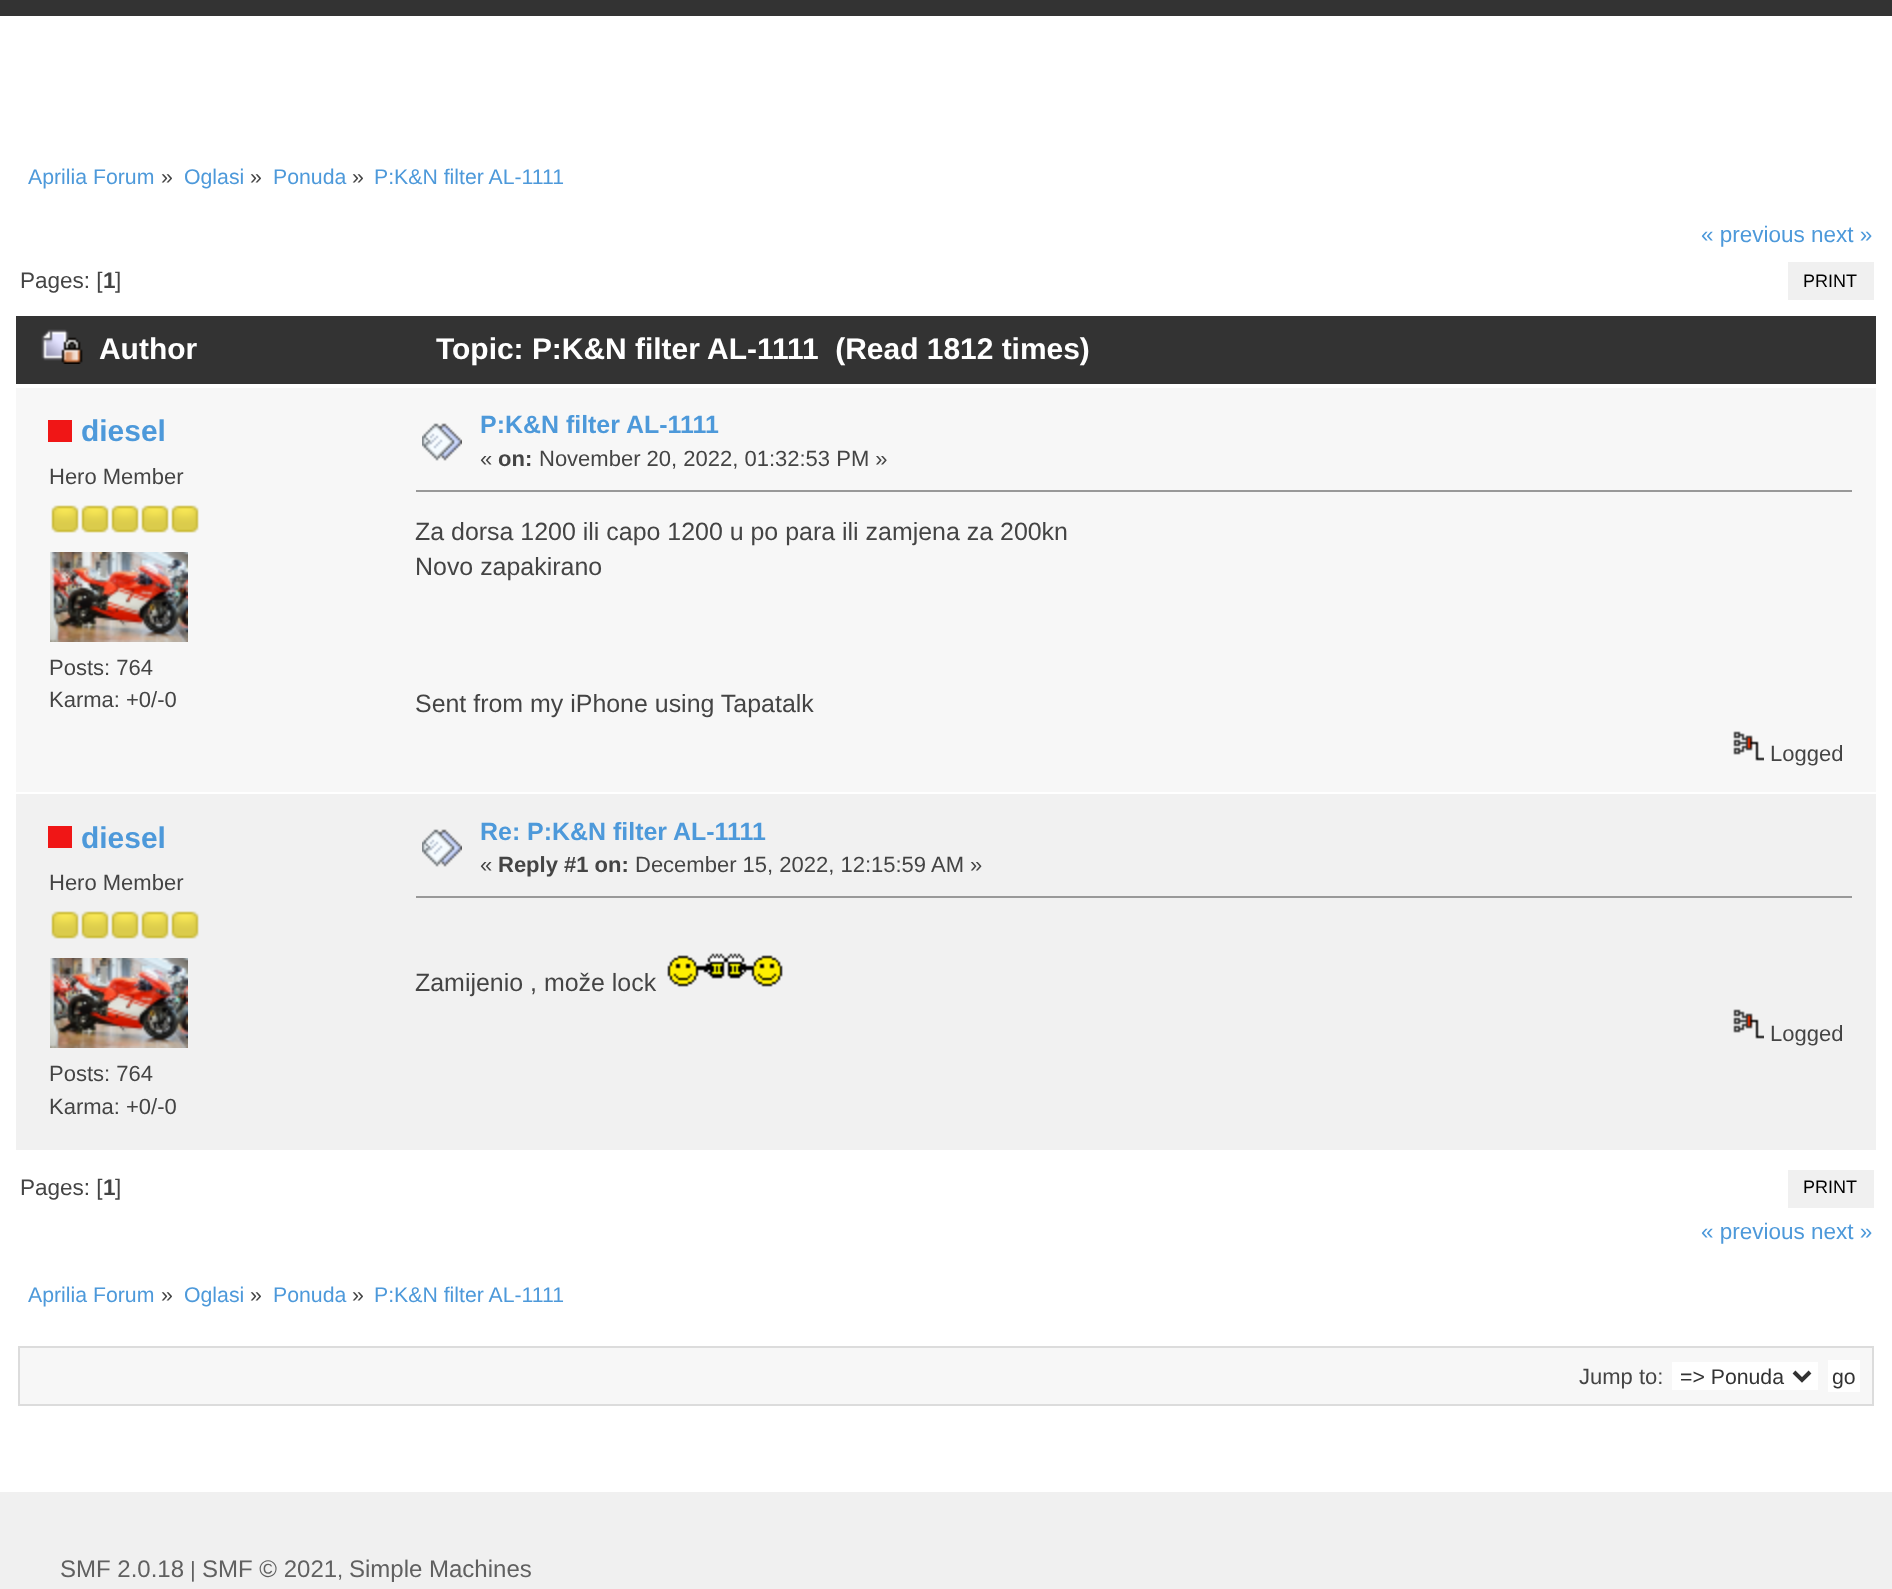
async function draw(canvas) {
  canvas.width = 1892;
  canvas.height = 1589;
  const ctx = canvas.getContext('2d');
  ctx.miterLimit = 4;
  ctx.fontKerning = 'normal';
  function label(s, x, y, font, color) {
    ctx.font = font;
    ctx.fillStyle = color;
    ctx.fillText(s, x, y);
  }
  function rect(x, y, w, h, color) {
    ctx.fillStyle = color;
    ctx.fillRect(x, y, w, h);
  }
  async function image(src, x, y, w, h) {
    const img = new Image();
    img.src = src;
    await img.decode();
    ctx.drawImage(img, x, y, w, h);
  }
  let path;

  rect(0, 0, 1892, 1589, '#fff');
  rect(0, 0, 1892, 16, '#333');
  label('Aprilia Forum', 28, 184, '21.25px Liberation Sans', '#4d99da');
  label('»', 161, 184, '21.25px Liberation Sans', '#444');
  label('Oglasi', 184, 184, '21.25px Liberation Sans', '#4d99da');
  label('»', 250, 184, '21.25px Liberation Sans', '#444');
  label('Ponuda', 273, 184, '21.25px Liberation Sans', '#4d99da');
  label('»', 352, 184, '21.25px Liberation Sans', '#444');
  label('P:K&N filter AL-1111', 374, 184, '21.25px Liberation Sans', '#4d99da');
  label('« previous next »', 1701, 242, '22.5px Liberation Sans', '#4d99da');
  label('Pages: [', 20, 288, '22.5px Liberation Sans', '#444');
  label('1', 103, 288, 'bold 22.5px Liberation Sans', '#444');
  label(']', 115, 288, '22.5px Liberation Sans', '#444');
  rect(1788, 262, 86, 38, '#f0f0f0');
  label('PRINT', 1803, 287, '18px Liberation Sans', '#000');
  rect(16, 316, 1860, 68, '#333');
  await image('assets/img1.png', 41, 329, 42, 35);
  label('Author', 99, 359, 'bold 29.95px Liberation Sans', '#fff');
  label('Topic: P:K&N filter AL-1111  (Read 1812 times)', 436, 359, 'bold 29.95px Liberation Sans', '#fff');
  rect(16, 388, 1860, 404, '#f7f7f7');
  rect(48, 420, 24, 22, '#f01616');
  label('diesel', 81, 441, 'bold 29.95px Liberation Sans', '#4d99da');
  label('Hero Member', 49, 484, '22px Liberation Sans', '#444');
  await image('assets/img2.png', 51, 505, 28, 28);
  await image('assets/img2.png', 81, 505, 28, 28);
  await image('assets/img2.png', 111, 505, 28, 28);
  await image('assets/img2.png', 141, 505, 28, 28);
  await image('assets/img2.png', 171, 505, 28, 28);
  await image('assets/img3.png', 50, 552, 138, 90);
  label('Posts: 764', 49, 675, '22px Liberation Sans', '#444');
  label('Karma: +0/-0', 49, 707, '22px Liberation Sans', '#444');
  await image('assets/img4.png', 422, 423, 40, 38);
  label('P:K&N filter AL-1111', 480, 433, 'bold 24.95px Liberation Sans', '#4d99da');
  label('«', 480, 466, '22px Liberation Sans', '#444');
  label('on:', 498, 466, 'bold 22px Liberation Sans', '#444');
  label('November 20, 2022, 01:32:53 PM »', 539, 466, '22px Liberation Sans', '#444');
  rect(416, 490, 1436, 2, '#999');
  label('Za dorsa 1200 ili capo 1200 u po para ili zamjena za 200kn', 415, 540, '24.95px Liberation Sans', '#444');
  label('Novo zapakirano', 415, 575, '24.95px Liberation Sans', '#444');
  label('Sent from my iPhone using Tapatalk', 415, 712, '24.95px Liberation Sans', '#444');
  await image('assets/img5.png', 1733, 731, 31, 30);
  label('Logged', 1770, 761, '22px Liberation Sans', '#444');
  rect(16, 794, 1860, 356, '#f1f1f1');
  rect(48, 826, 24, 22, '#f01616');
  label('diesel', 81, 848, 'bold 29.95px Liberation Sans', '#4d99da');
  label('Hero Member', 49, 890, '22px Liberation Sans', '#444');
  await image('assets/img6.png', 51, 911, 28, 28);
  await image('assets/img6.png', 81, 911, 28, 28);
  await image('assets/img6.png', 111, 911, 28, 28);
  await image('assets/img6.png', 141, 911, 28, 28);
  await image('assets/img6.png', 171, 911, 28, 28);
  await image('assets/img3.png', 50, 958, 138, 90);
  label('Posts: 764', 49, 1081, '22px Liberation Sans', '#444');
  label('Karma: +0/-0', 49, 1114, '22px Liberation Sans', '#444');
  await image('assets/img7.png', 422, 829, 40, 38);
  label('Re: P:K&N filter AL-1111', 480, 840, 'bold 24.95px Liberation Sans', '#4d99da');
  label('«', 480, 872, '22px Liberation Sans', '#444');
  label('Reply #1 on:', 498, 872, 'bold 22px Liberation Sans', '#444');
  label('December 15, 2022, 12:15:59 AM »', 635, 872, '22px Liberation Sans', '#444');
  rect(416, 896, 1436, 2, '#999');
  label('Zamijenio , može lock', 415, 991, '24.95px Liberation Sans', '#444');
  await image('assets/img8.png', 667, 953, 116, 34);
  await image('assets/img9.png', 1733, 1009, 31, 30);
  label('Logged', 1770, 1041, '22px Liberation Sans', '#444');
  label('Pages: [', 20, 1195, '22.5px Liberation Sans', '#444');
  label('1', 103, 1195, 'bold 22.5px Liberation Sans', '#444');
  label(']', 115, 1195, '22.5px Liberation Sans', '#444');
  rect(1788, 1170, 86, 38, '#f0f0f0');
  label('PRINT', 1803, 1193, '18px Liberation Sans', '#000');
  label('« previous next »', 1701, 1239, '22.5px Liberation Sans', '#4d99da');
  label('Aprilia Forum', 28, 1302, '21.25px Liberation Sans', '#4d99da');
  label('»', 161, 1302, '21.25px Liberation Sans', '#444');
  label('Oglasi', 184, 1302, '21.25px Liberation Sans', '#4d99da');
  label('»', 250, 1302, '21.25px Liberation Sans', '#444');
  label('Ponuda', 273, 1302, '21.25px Liberation Sans', '#4d99da');
  label('»', 352, 1302, '21.25px Liberation Sans', '#444');
  label('P:K&N filter AL-1111', 374, 1302, '21.25px Liberation Sans', '#4d99da');
  ctx.fillStyle = '#f7f7f7';
  ctx.beginPath();
  ctx.rect(19, 1347, 1854, 58);
  ctx.fill();
  ctx.strokeStyle = '#dcdcdc';
  ctx.lineWidth = 2;
  ctx.stroke();
  label('Jump to:', 1579, 1384, '22px Liberation Sans', '#444');
  rect(1672, 1362, 146, 28, '#fff');
  path = new Path2D('M1794 1372L1802 1380L1810 1372');
  ctx.strokeStyle = '#333';
  ctx.lineWidth = 4;
  ctx.stroke(path);
  label('=> Ponuda', 1680, 1384, '21.25px Liberation Sans', '#333');
  rect(1828, 1360, 32, 32, '#fff');
  label('go', 1832, 1384, '21.25px Liberation Sans', '#333');
  rect(0, 1492, 1892, 97, '#f0f0f0');
  label('SMF 2.0.18', 60, 1577, '24px Liberation Sans', '#606060');
  label('|', 190, 1577, '22px Liberation Sans', '#606060');
  label('SMF © 2021', 202, 1577, '24px Liberation Sans', '#606060');
  label(',', 337, 1577, '22px Liberation Sans', '#606060');
  label('Simple Machines', 349, 1577, '24px Liberation Sans', '#606060');
}

draw(document.querySelector('canvas'));
